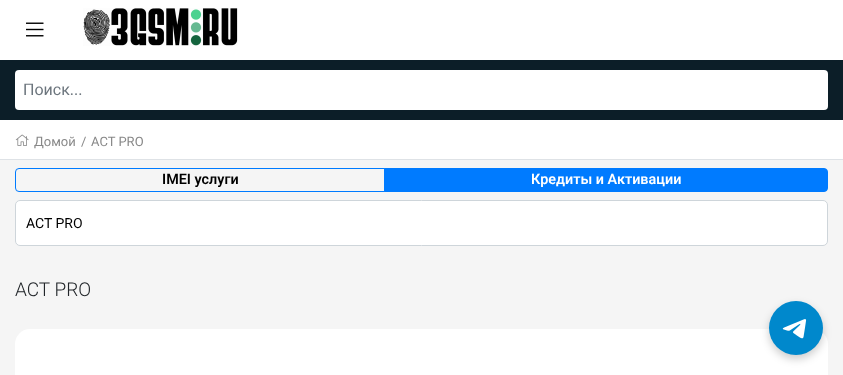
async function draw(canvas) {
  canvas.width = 843;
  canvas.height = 375;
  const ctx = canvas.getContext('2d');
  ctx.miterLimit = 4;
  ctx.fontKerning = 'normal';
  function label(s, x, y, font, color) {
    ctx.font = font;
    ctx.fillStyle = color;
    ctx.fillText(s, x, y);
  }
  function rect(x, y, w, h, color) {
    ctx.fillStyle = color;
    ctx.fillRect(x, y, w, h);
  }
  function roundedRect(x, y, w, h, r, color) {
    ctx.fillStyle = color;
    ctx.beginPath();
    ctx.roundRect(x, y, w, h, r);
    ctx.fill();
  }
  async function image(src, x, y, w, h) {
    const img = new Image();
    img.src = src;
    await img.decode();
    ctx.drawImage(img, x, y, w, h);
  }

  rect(0, 0, 843, 375, '#f5f5f5');
  rect(0, 0, 843, 60, '#fff');
  await image('assets/img1.png', 26, 22, 18, 15);
  await image('assets/img2.png', 83, 8, 155, 38);
  rect(0, 60, 843, 60, '#0c1e28');
  roundedRect(15, 70, 813, 40, 4, '#fff');
  label('Поиск...', 23, 95, '16px Roboto', '#6c757d');
  rect(0, 120, 843, 39, '#fff');
  rect(0, 159, 843, 1, '#dee2e6');
  await image('assets/img3.png', 15, 134, 14, 12);
  label('Домой', 34, 146, '13px Roboto', '#888');
  label('/', 81, 146, '13px Roboto', '#888');
  label('ACT PRO', 91, 146, '13px Roboto', '#888');
  ctx.beginPath();
  ctx.roundRect(15.5, 168.5, 369, 23, [3.5, 0, 0, 3.5]);
  ctx.strokeStyle = '#007bff';
  ctx.stroke();
  label('IMEI услуги', 162, 184, '600 14.4px Roboto', '#000');
  ctx.fillStyle = '#007bff';
  ctx.beginPath();
  ctx.roundRect(384.5, 168.5, 443, 23, [0, 3.5, 3.5, 0]);
  ctx.fill();
  ctx.stroke();
  label('Кредиты и Активации', 531, 184, '600 14.4px Roboto', '#fff');
  ctx.beginPath();
  ctx.roundRect(15.5, 200.5, 812, 45, 4.5);
  ctx.fill();
  ctx.strokeStyle = '#ced5da';
  ctx.stroke();
  label('ACT PRO', 26, 228, '14px Roboto', '#000');
  label('ACT PRO', 15, 296, '300 19px Roboto', '#212529');
  roundedRect(15, 329, 813, 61, 15, '#fff');
  ctx.fillStyle = '#00000033';
  ctx.filter = 'blur(4px)';
  ctx.beginPath();
  ctx.roundRect(769, 305, 54, 54, 27);
  ctx.fill();
  ctx.filter = 'none';
  ctx.fillStyle = '#08c';
  ctx.beginPath();
  ctx.arc(796, 328, 27, 0, 2 * Math.PI);
  ctx.fill();
  await image('assets/img4.png', 782, 319, 25, 20);
}

draw(document.querySelector('canvas'));
